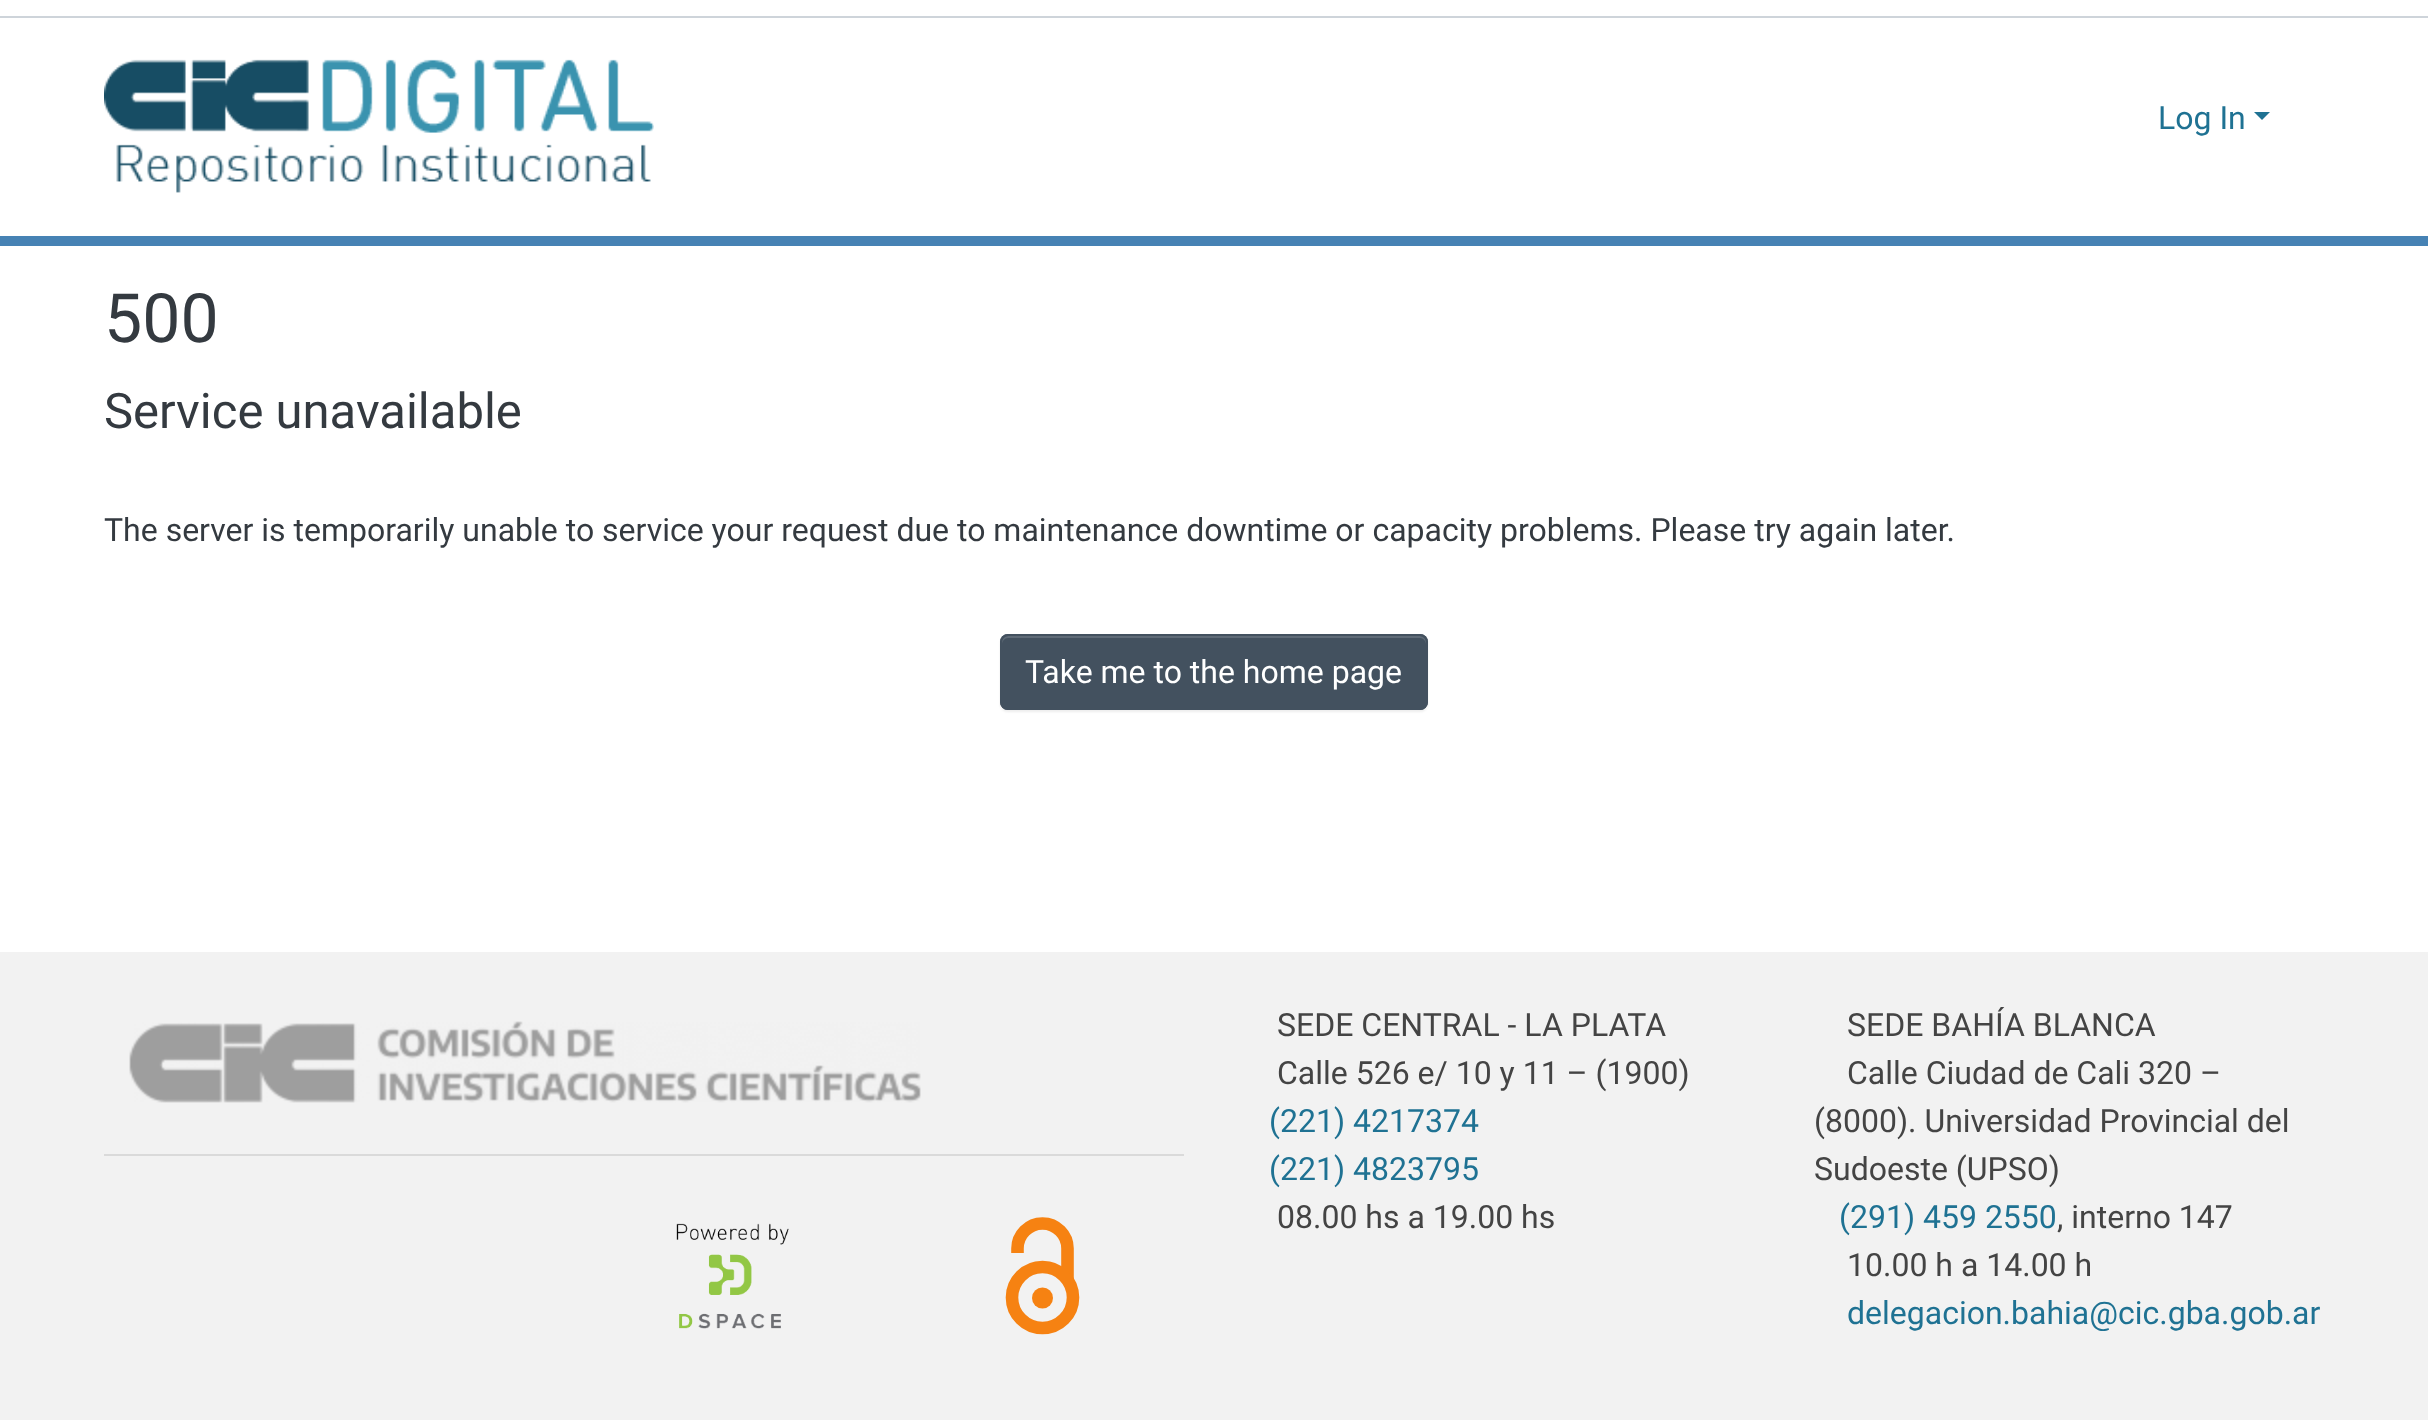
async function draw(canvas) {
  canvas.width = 2428;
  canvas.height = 1420;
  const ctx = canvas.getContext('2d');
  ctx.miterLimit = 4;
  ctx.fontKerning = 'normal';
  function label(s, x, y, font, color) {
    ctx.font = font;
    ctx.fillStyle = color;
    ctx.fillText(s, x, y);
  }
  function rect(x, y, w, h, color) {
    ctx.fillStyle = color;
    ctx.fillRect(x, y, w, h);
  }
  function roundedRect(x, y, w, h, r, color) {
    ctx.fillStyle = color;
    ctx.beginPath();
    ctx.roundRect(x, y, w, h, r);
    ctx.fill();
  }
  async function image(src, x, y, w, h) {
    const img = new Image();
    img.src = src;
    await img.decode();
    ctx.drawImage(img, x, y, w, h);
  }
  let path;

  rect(0, 0, 2428, 1420, '#fff');
  rect(0, 236, 2428, 10, '#4682b4');
  rect(0, 16, 2428, 2, '#ced4da');
  await image('assets/img1.png', 104, 59, 550, 134);
  label('Log In', 2158, 129, '32px Roboto', '#1f7293');
  path = new Path2D('M2254 112H2270L2262 120Z');
  ctx.fill(path);
  label('500', 104, 342, '68px Roboto', '#343a40');
  label('Service unavailable', 104, 428, '49px Roboto', '#343a40');
  label('The server is temporarily unable to service your request due to maintenance downtime or capacity problems. Please try again later.', 104, 541, '32px Roboto', '#343a40');
  ctx.fillStyle = '#00000012';
  ctx.filter = 'blur(1px)';
  ctx.beginPath();
  ctx.roundRect(1000, 636, 428, 76, 8);
  ctx.fill();
  ctx.filter = 'none';
  roundedRect(1000, 634, 428, 76, 8, '#43515f');
  ctx.fillStyle = '#5f6b77';
  path = new Path2D('M1008 638H1420C1423 638 1426 641 1426 644V642C1426 639 1423 636 1420 636H1008C1005 636 1002 639 1002 642V644C1002 641 1005 638 1008 638Z');
  ctx.fill(path);
  ctx.beginPath();
  ctx.roundRect(1001, 635, 426, 74, 7);
  ctx.strokeStyle = '#43515f';
  ctx.lineWidth = 2;
  ctx.stroke();
  label('Take me to the home page', 1025, 683, '32px Roboto', '#fff');
  rect(0, 952, 2428, 468, '#f2f2f2');
  await image('assets/img2.png', 129, 1021, 792, 82);
  rect(104, 1154, 1080, 2, '#dadada');
  await image('assets/img3.png', 676, 1223, 113, 106);
  path = new Path2D('M1017.5 1253V1248.5C1017.5 1235 1028.5 1223.5 1042.5 1223.5C1056.5 1223.5 1067.5 1235 1067.5 1248.5V1279.5');
  ctx.strokeStyle = '#f68212';
  ctx.lineWidth = 12.6;
  ctx.stroke(path);
  ctx.beginPath();
  ctx.arc(1042.5, 1297.5, 30.5, 0, 2 * Math.PI);
  ctx.stroke();
  ctx.fillStyle = '#f68212';
  ctx.beginPath();
  ctx.arc(1042.5, 1298, 10.5, 0, 2 * Math.PI);
  ctx.fill();
  label('SEDE CENTRAL - LA PLATA', 1277, 1036, '32px Roboto', '#444');
  label('Calle 526 e/ 10 y 11 – (1900)', 1277, 1084, '32px Roboto', '#444');
  label('(221) 4217374', 1269, 1132, '32px Roboto', '#1f7293');
  label('(221) 4823795', 1269, 1180, '32px Roboto', '#1f7293');
  label('08.00 hs a 19.00 hs', 1277, 1228, '32px Roboto', '#444');
  label('SEDE BAHÍA BLANCA', 1847, 1036, '32px Roboto', '#444');
  label('Calle Ciudad de Cali 320 –', 1847, 1084, '32px Roboto', '#444');
  label('(8000). Universidad Provincial del', 1814, 1132, '32px Roboto', '#444');
  label('Sudoeste (UPSO)', 1814, 1180, '32px Roboto', '#444');
  label('(291) 459 2550', 1839, 1228, '32px Roboto', '#1f7293');
  label(', interno 147', 2057, 1228, '32px Roboto', '#444');
  label('10.00 h a 14.00 h', 1847, 1276, '32px Roboto', '#444');
  label('delegacion.bahia@cic.gba.gob.ar', 1847, 1324, '32px Roboto', '#1f7293');
}

draw(document.querySelector('canvas'));
